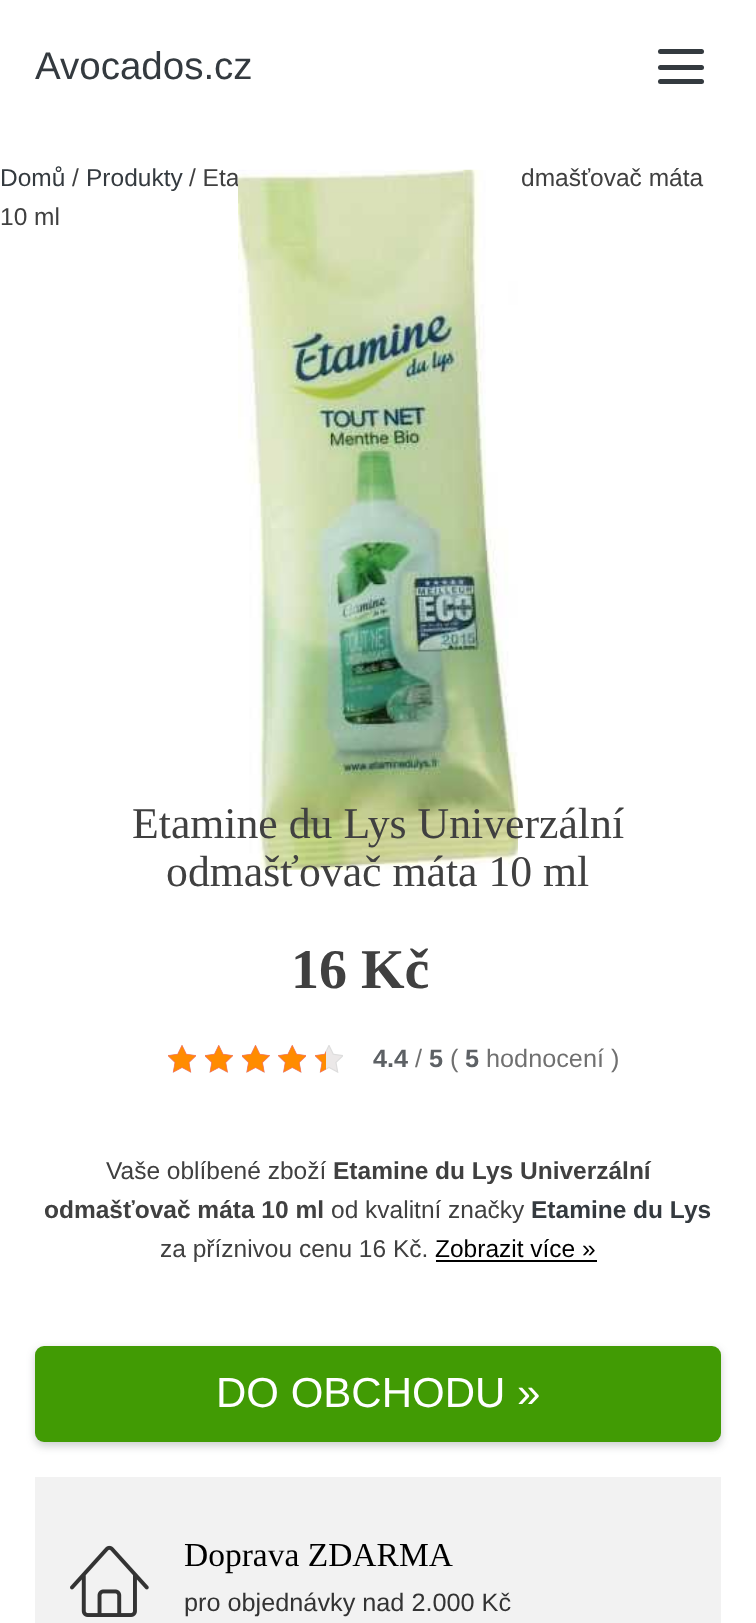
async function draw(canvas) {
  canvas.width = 756;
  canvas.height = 1623;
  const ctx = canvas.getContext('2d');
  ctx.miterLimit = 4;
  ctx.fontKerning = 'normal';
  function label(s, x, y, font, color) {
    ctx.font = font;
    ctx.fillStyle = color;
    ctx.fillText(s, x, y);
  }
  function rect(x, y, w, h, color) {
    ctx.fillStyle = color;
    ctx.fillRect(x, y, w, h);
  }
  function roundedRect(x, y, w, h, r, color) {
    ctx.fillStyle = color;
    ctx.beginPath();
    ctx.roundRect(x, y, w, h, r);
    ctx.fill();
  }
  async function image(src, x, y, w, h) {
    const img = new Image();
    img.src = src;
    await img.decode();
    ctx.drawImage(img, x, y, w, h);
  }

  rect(0, 0, 756, 1623, '#fff');
  label('Avocados.cz', 35, 79, '38.5px Liberation Sans', '#343a3f');
  roundedRect(658, 49, 46, 5, 2.5, '#343a3f');
  roundedRect(658, 65, 46, 5, 2.5, '#343a3f');
  roundedRect(658, 79, 46, 5, 2.5, '#343a3f');
  label('Domů', 0, 186, '24.5px Liberation Sans', '#343a3f');
  label('/', 72, 186, '24.5px Liberation Sans', '#404040');
  label('Produkty', 86, 186, '24.5px Liberation Sans', '#343a3f');
  label('/ Eta', 189, 186, '24.5px Liberation Sans', '#404040');
  label('dmašťovač máta', 521, 186, '24.5px Liberation Sans', '#404040');
  label('10 ml', 0, 225, '24.5px Liberation Sans', '#404040');
  await image('assets/img1.png', 238, 169, 280, 701);
  label('Etamine du Lys Univerzální', 132, 838, '43.75px Liberation Serif', '#404040');
  label('odmašťovač máta 10 ml', 166, 886, '43.75px Liberation Serif', '#404040');
  label('16 Kč', 291, 988, 'bold 56px Liberation Serif', '#404040');
  await image('assets/img2.png', 168, 1045, 28, 28);
  await image('assets/img3.png', 205, 1045, 28, 28);
  await image('assets/img4.png', 242, 1045, 28, 28);
  await image('assets/img5.png', 278, 1045, 28, 28);
  await image('assets/img2.png', 315, 1045, 28, 28);
  await image('assets/img6.png', 168, 1045, 28, 28);
  await image('assets/img7.png', 205, 1045, 28, 28);
  await image('assets/img8.png', 242, 1045, 28, 28);
  await image('assets/img9.png', 278, 1045, 28, 28);
  await image('assets/img10.png', 315, 1051, 11, 22);
  label('4.4', 373, 1067, 'bold 25.25px Liberation Sans', '#5d6165');
  label('/', 415, 1067, '25.25px Liberation Sans', '#707070');
  label('5', 429, 1067, 'bold 25.25px Liberation Sans', '#5d6165');
  label('(', 450, 1067, '25.25px Liberation Sans', '#707070');
  label('5', 465, 1067, 'bold 25.25px Liberation Sans', '#5d6165');
  label('hodnocení )', 486, 1067, '25.25px Liberation Sans', '#707070');
  label('Vaše oblíbené zboží', 106, 1179, '24.5px Liberation Sans', '#404040');
  label('Etamine du Lys Univerzální', 333, 1179, 'bold 24.5px Liberation Sans', '#404040');
  label('odmašťovač máta 10 ml', 44, 1218, 'bold 24.5px Liberation Sans', '#404040');
  label('od kvalitní značky', 331, 1218, '24.5px Liberation Sans', '#404040');
  label('Etamine du Lys', 531, 1218, 'bold 24.5px Liberation Sans', '#343a3f');
  label('za příznivou cenu 16 Kč.', 160, 1257, '24.5px Liberation Sans', '#404040');
  label('Zobrazit více »', 435, 1257, '24.5px Liberation Sans', '#000');
  rect(436, 1260, 161, 2, '#000');
  ctx.fillStyle = '#343a3f40';
  ctx.filter = 'blur(4.5px)';
  ctx.beginPath();
  ctx.roundRect(35, 1349, 686, 97, 9);
  ctx.fill();
  ctx.filter = 'none';
  roundedRect(35, 1346, 686, 96, 9, '#419b04');
  label('DO OBCHODU »', 216, 1407, '42px Liberation Sans', '#fff');
  rect(35, 1477, 686, 146, '#f2f2f2');
  await image('assets/img11.png', 70, 1545, 79, 72);
  label('Doprava ZDARMA', 184, 1566, '33.5px Liberation Serif', '#000');
  label('pro objednávky nad 2.000 Kč', 184, 1611, '25.25px Liberation Sans', '#333');
}

draw(document.querySelector('canvas'));
